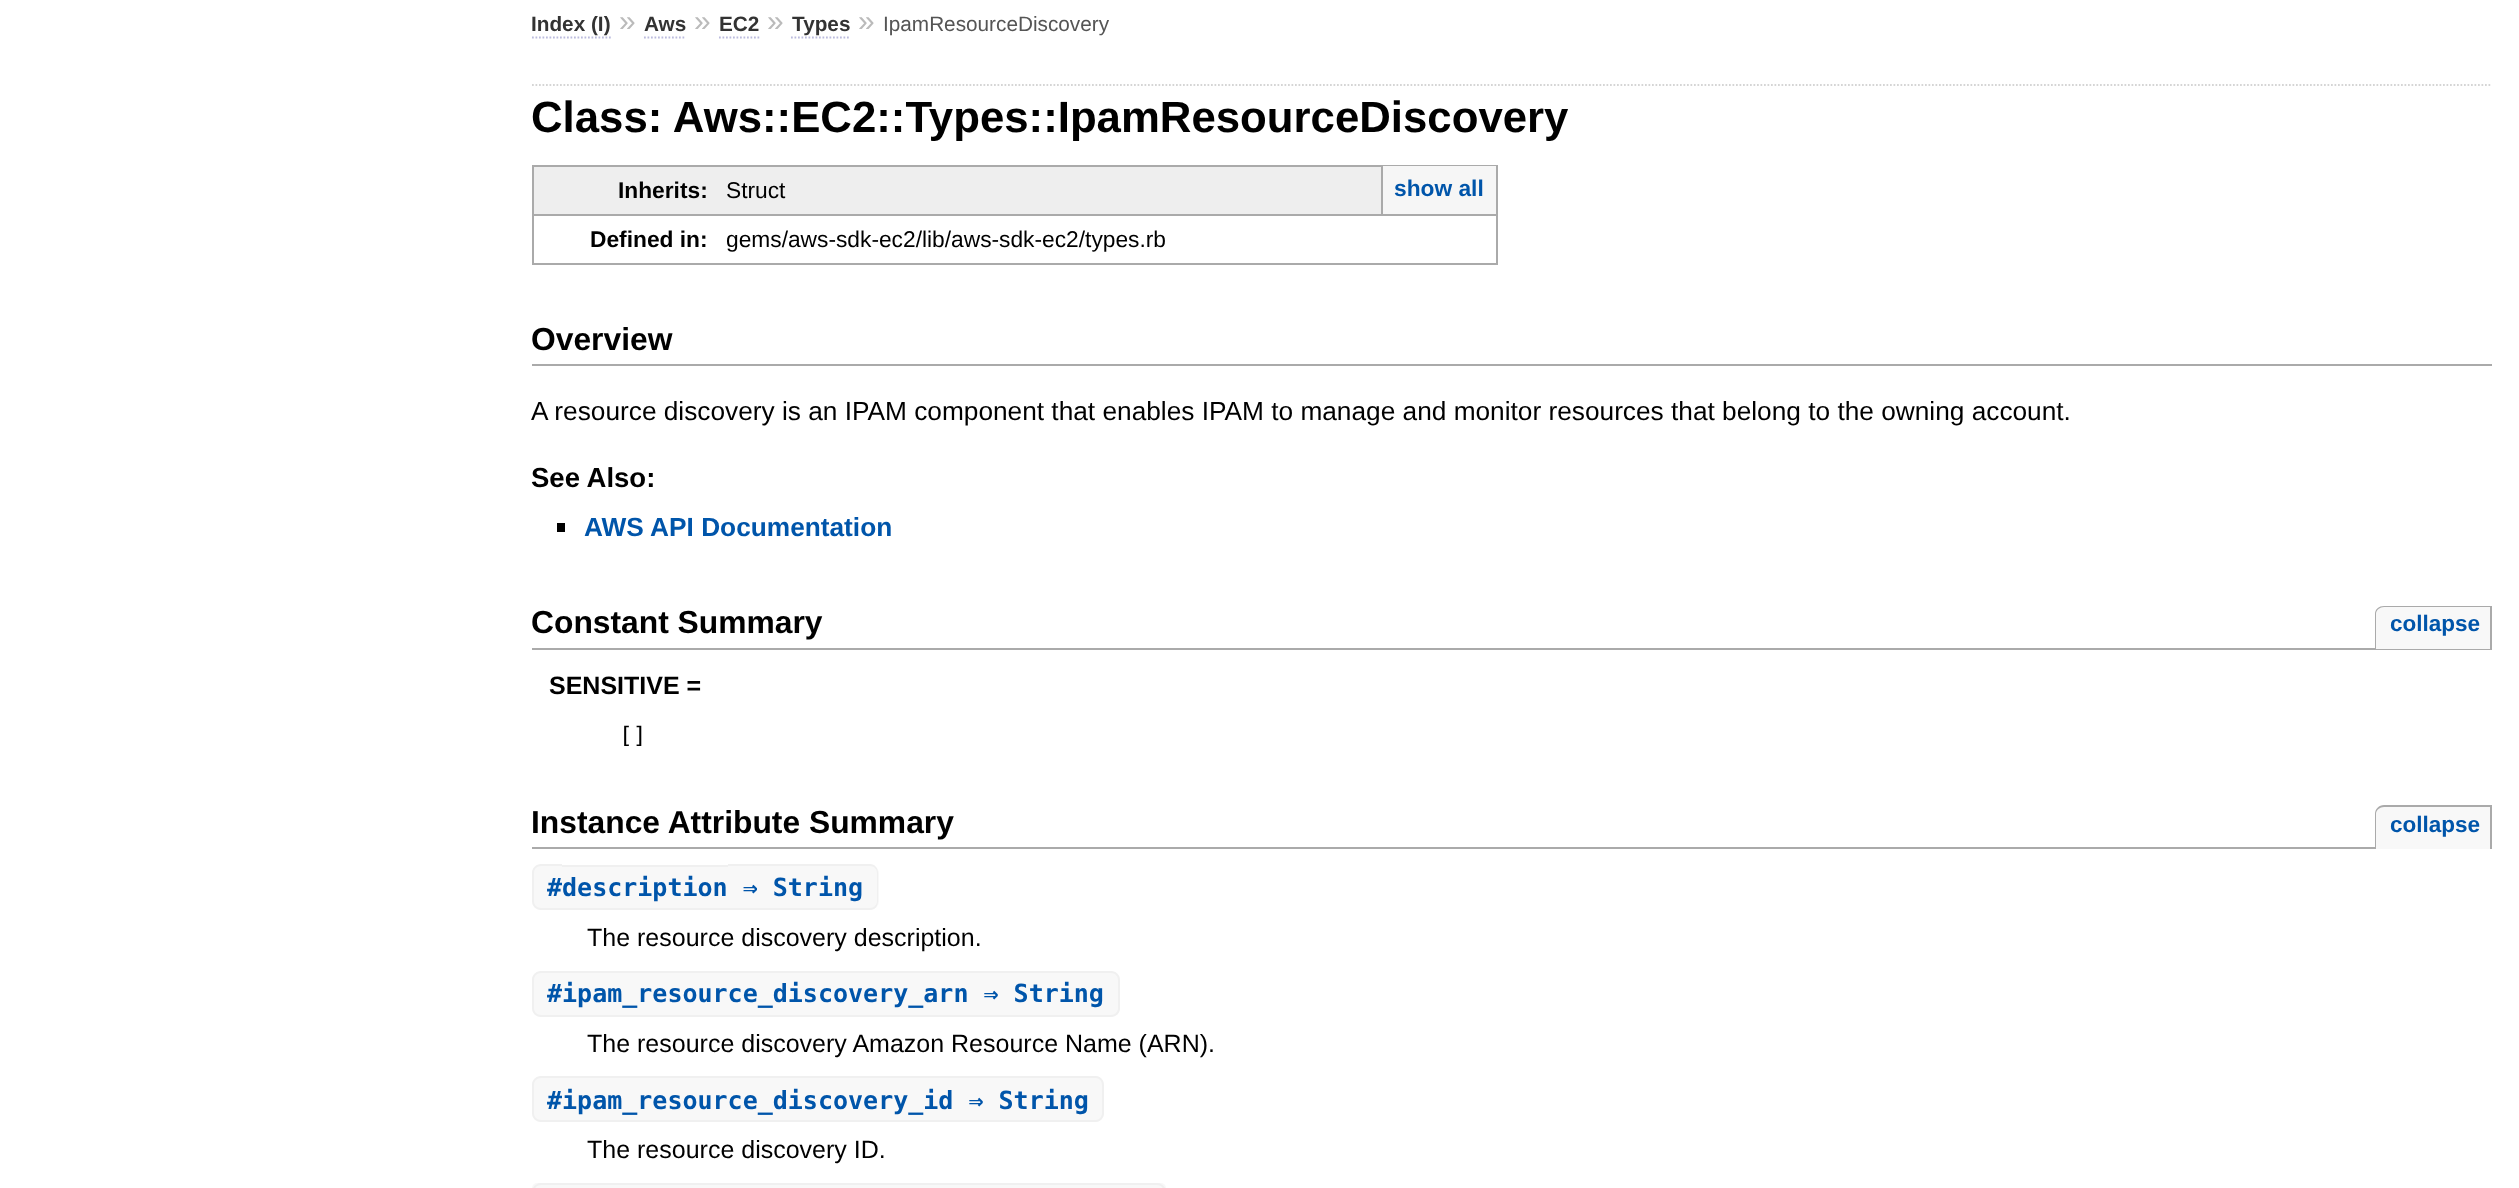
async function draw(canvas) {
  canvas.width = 2519;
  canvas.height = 1188;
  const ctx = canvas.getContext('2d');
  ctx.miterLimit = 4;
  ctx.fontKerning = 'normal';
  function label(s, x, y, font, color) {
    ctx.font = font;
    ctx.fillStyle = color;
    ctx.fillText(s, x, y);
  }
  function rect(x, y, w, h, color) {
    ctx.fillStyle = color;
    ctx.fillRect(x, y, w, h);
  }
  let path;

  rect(0, 0, 2519, 1188, '#fff');
  label('Index (I)', 531, 31, 'bold 20.75px Liberation Sans', '#333');
  path = new Path2D('M532 37.5H611');
  ctx.strokeStyle = '#bbd';
  ctx.lineWidth = 1.8;
  ctx.setLineDash([1.75, 1.75]);
  ctx.stroke(path);
  label('»', 619, 31, '30px Liberation Sans', '#bbb');
  label('Aws', 644, 31, 'bold 20.75px Liberation Sans', '#333');
  path = new Path2D('M644 37.5H686');
  ctx.stroke(path);
  label('»', 694, 31, '30px Liberation Sans', '#bbb');
  label('EC2', 719, 31, 'bold 20.75px Liberation Sans', '#333');
  path = new Path2D('M719 37.5H759.5');
  ctx.stroke(path);
  label('»', 767, 31, '30px Liberation Sans', '#bbb');
  label('Types', 792, 31, 'bold 20.75px Liberation Sans', '#333');
  path = new Path2D('M791 37.5H850.5');
  ctx.stroke(path);
  label('»', 858, 31, '30px Liberation Sans', '#bbb');
  label('IpamResourceDiscovery', 883, 31, '20.75px Liberation Sans', '#555');
  path = new Path2D('M532 85H2492');
  ctx.strokeStyle = '#d5d5d5';
  ctx.stroke(path);
  label('Class: Aws::EC2::Types::IpamResourceDiscovery', 531, 132, 'bold 43.75px Liberation Sans', '#000');
  rect(534, 167, 847, 47, '#eee');
  rect(532, 165, 966, 2, '#aaa');
  rect(532, 165, 2, 49, '#aaa');
  label('Inherits:', 618, 198, 'bold 22.75px Liberation Sans', '#000');
  rect(532, 214, 966, 2, '#aaa');
  rect(1496, 165, 2, 99, '#aaa');
  label('Struct', 726, 198, '22.75px Liberation Sans', '#000');
  rect(1383, 166, 113, 48, '#f6f6f6');
  rect(1381, 166, 2, 48, '#aaa');
  label('show all', 1394, 196, 'bold 22.75px Liberation Sans', '#05a');
  rect(532, 263, 194, 2, '#aaa');
  rect(532, 214, 2, 50, '#aaa');
  label('Defined in:', 590, 247, 'bold 22.75px Liberation Sans', '#000');
  rect(726, 263, 772, 2, '#aaa');
  label('gems/aws-sdk-ec2/lib/aws-sdk-ec2/types.rb', 726, 247, '22.75px Liberation Sans', '#000');
  rect(532, 364, 1960, 2, '#aaa');
  label('Overview', 531, 350, 'bold 31.8px Liberation Sans', '#000');
  label('A resource discovery is an IPAM component that enables IPAM to manage and monitor resources that belong to the owning account.', 531, 420, '26.25px Liberation Sans', '#000');
  label('See Also:', 531, 487, 'bold 27.5px Liberation Sans', '#000');
  rect(557, 523, 8, 9, '#000');
  label('AWS API Documentation', 584, 536, 'bold 26.25px Liberation Sans', '#05a');
  rect(532, 648, 1960, 2, '#aaa');
  label('Constant Summary', 531, 633, 'bold 31.8px Liberation Sans', '#000');
  ctx.fillStyle = '#f8f8f8';
  ctx.beginPath();
  ctx.roundRect(2375, 606, 117, 43, [9, 0, 0, 0]);
  ctx.fill();
  ctx.fillStyle = '#aaa';
  path = new Path2D('M2384 606H2492V649H2375V614C2375 609 2379 606 2384 606ZM2384 607H2490V649H2376V614C2376 610 2380 607 2384 607Z');
  ctx.fill(path, 'evenodd');
  label('collapse', 2390, 631, 'bold 22.5px Liberation Sans', '#05a');
  label('SENSITIVE =', 549, 694, 'bold 25px Liberation Sans', '#000');
  label('[]', 619, 743, '22.75px DejaVu Sans Mono', '#000');
  rect(532, 847, 1843, 2, '#aaa');
  label('Instance Attribute Summary', 531, 833, 'bold 31.8px Liberation Sans', '#000');
  ctx.fillStyle = '#f8f8f8';
  ctx.beginPath();
  ctx.roundRect(2375, 805, 117, 44, [9, 0, 0, 0]);
  ctx.fill();
  ctx.fillStyle = '#aaa';
  path = new Path2D('M2384 805H2492V849H2375V814C2375 809 2379 805 2384 805ZM2384 807H2490V849H2376V814C2376 810 2380 807 2384 807Z');
  ctx.fill(path, 'evenodd');
  label('collapse', 2390, 832, 'bold 22.5px Liberation Sans', '#05a');
  ctx.fillStyle = '#f8f8f8';
  ctx.beginPath();
  ctx.roundRect(532, 865, 30, 45, [9, 0, 0, 9]);
  ctx.fill();
  ctx.fillStyle = '#f0f0f0';
  path = new Path2D('M541 864H562V910H541C536 910 532 906 532 901V873C532 868 536 864 541 864ZM541 866H562V908H541C537 908 534 905 534 901V873C534 869 537 866 541 866Z');
  ctx.fill(path, 'evenodd');
  rect(562, 867, 166, 41, '#f8f8f8');
  ctx.beginPath();
  ctx.roundRect(728, 865, 151, 45, [0, 9, 9, 0]);
  ctx.fill();
  ctx.fillStyle = '#f0f0f0';
  path = new Path2D('M728 864H870C875 864 878 868 878 873V901C878 906 875 910 870 910H728ZM728 866H870C874 866 877 869 877 873V901C877 905 874 908 870 908H728Z');
  ctx.fill(path, 'evenodd');
  label('#description ⇒ String', 547, 896, 'bold 25px DejaVu Sans Mono', '#05a');
  rect(562, 865, 166, 2, '#f0f0f0');
  rect(562, 908, 166, 2, '#f0f0f0');
  label('The resource discovery description.', 587, 946, '25px Liberation Sans', '#000');
  ctx.fillStyle = '#f8f8f8';
  ctx.beginPath();
  ctx.roundRect(532, 971, 30, 46, [9, 0, 0, 9]);
  ctx.fill();
  ctx.fillStyle = '#f0f0f0';
  path = new Path2D('M541 971H562V1017H541C536 1017 532 1013 532 1008V980C532 975 536 971 541 971ZM541 973H562V1015H541C537 1015 534 1012 534 1008V980C534 976 537 973 541 973Z');
  ctx.fill(path, 'evenodd');
  rect(562, 973, 408, 42, '#f8f8f8');
  ctx.beginPath();
  ctx.roundRect(970, 971, 150, 46, [0, 9, 9, 0]);
  ctx.fill();
  ctx.fillStyle = '#f0f0f0';
  path = new Path2D('M970 971H1111C1116 971 1120 975 1120 980V1008C1120 1013 1116 1017 1111 1017H970ZM970 973H1111C1115 973 1118 976 1118 980V1008C1118 1012 1115 1015 1111 1015H970Z');
  ctx.fill(path, 'evenodd');
  label('#ipam_resource_discovery_arn ⇒ String', 547, 1002, 'bold 25px DejaVu Sans Mono', '#05a');
  rect(562, 971, 408, 2, '#f0f0f0');
  rect(562, 1015, 408, 2, '#f0f0f0');
  label('The resource discovery Amazon Resource Name (ARN).', 587, 1052, '25px Liberation Sans', '#000');
  ctx.fillStyle = '#f8f8f8';
  ctx.beginPath();
  ctx.roundRect(532, 1076, 30, 46, [9, 0, 0, 9]);
  ctx.fill();
  ctx.fillStyle = '#f0f0f0';
  path = new Path2D('M541 1076H562V1122H541C536 1122 532 1118 532 1113V1085C532 1080 536 1076 541 1076ZM541 1078H562V1120H541C537 1120 534 1117 534 1113V1085C534 1081 537 1078 541 1078Z');
  ctx.fill(path, 'evenodd');
  rect(562, 1078, 392, 42, '#f8f8f8');
  ctx.beginPath();
  ctx.roundRect(954, 1076, 150, 46, [0, 9, 9, 0]);
  ctx.fill();
  ctx.fillStyle = '#f0f0f0';
  path = new Path2D('M954 1076H1096C1100 1076 1104 1080 1104 1085V1113C1104 1118 1100 1122 1096 1122H954ZM954 1078H1096C1099 1078 1102 1081 1102 1085V1113C1102 1117 1099 1120 1096 1120H954Z');
  ctx.fill(path, 'evenodd');
  label('#ipam_resource_discovery_id ⇒ String', 547, 1109, 'bold 25px DejaVu Sans Mono', '#05a');
  rect(562, 1076, 392, 2, '#f0f0f0');
  rect(562, 1120, 392, 2, '#f0f0f0');
  label('The resource discovery ID.', 587, 1158, '25px Liberation Sans', '#000');
  ctx.fillStyle = '#f8f8f8';
  ctx.beginPath();
  ctx.roundRect(532, 1183, 30, 5, [9, 0, 0, 0]);
  ctx.fill();
  ctx.fillStyle = '#f0f0f0';
  path = new Path2D('M541 1183H562V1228H541C536 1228 532 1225 532 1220V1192C532 1187 536 1183 541 1183ZM541 1185H562V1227H541C537 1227 534 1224 534 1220V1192C534 1188 537 1185 541 1185Z');
  ctx.fill(path, 'evenodd');
  rect(562, 1183, 451, 2, '#f0f0f0');
  ctx.fillStyle = '#f8f8f8';
  ctx.beginPath();
  ctx.roundRect(1013, 1183, 153, 5, [0, 9, 0, 0]);
  ctx.fill();
  rect(562, 1185, 451, 3, '#f8f8f8');
  ctx.fillStyle = '#f0f0f0';
  path = new Path2D('M1013 1183H1157C1162 1183 1166 1187 1166 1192V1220C1166 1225 1162 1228 1157 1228H1013ZM1013 1185H1157C1161 1185 1164 1188 1164 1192V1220C1164 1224 1161 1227 1157 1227H1013Z');
  ctx.fill(path, 'evenodd');
}

draw(document.querySelector('canvas'));
